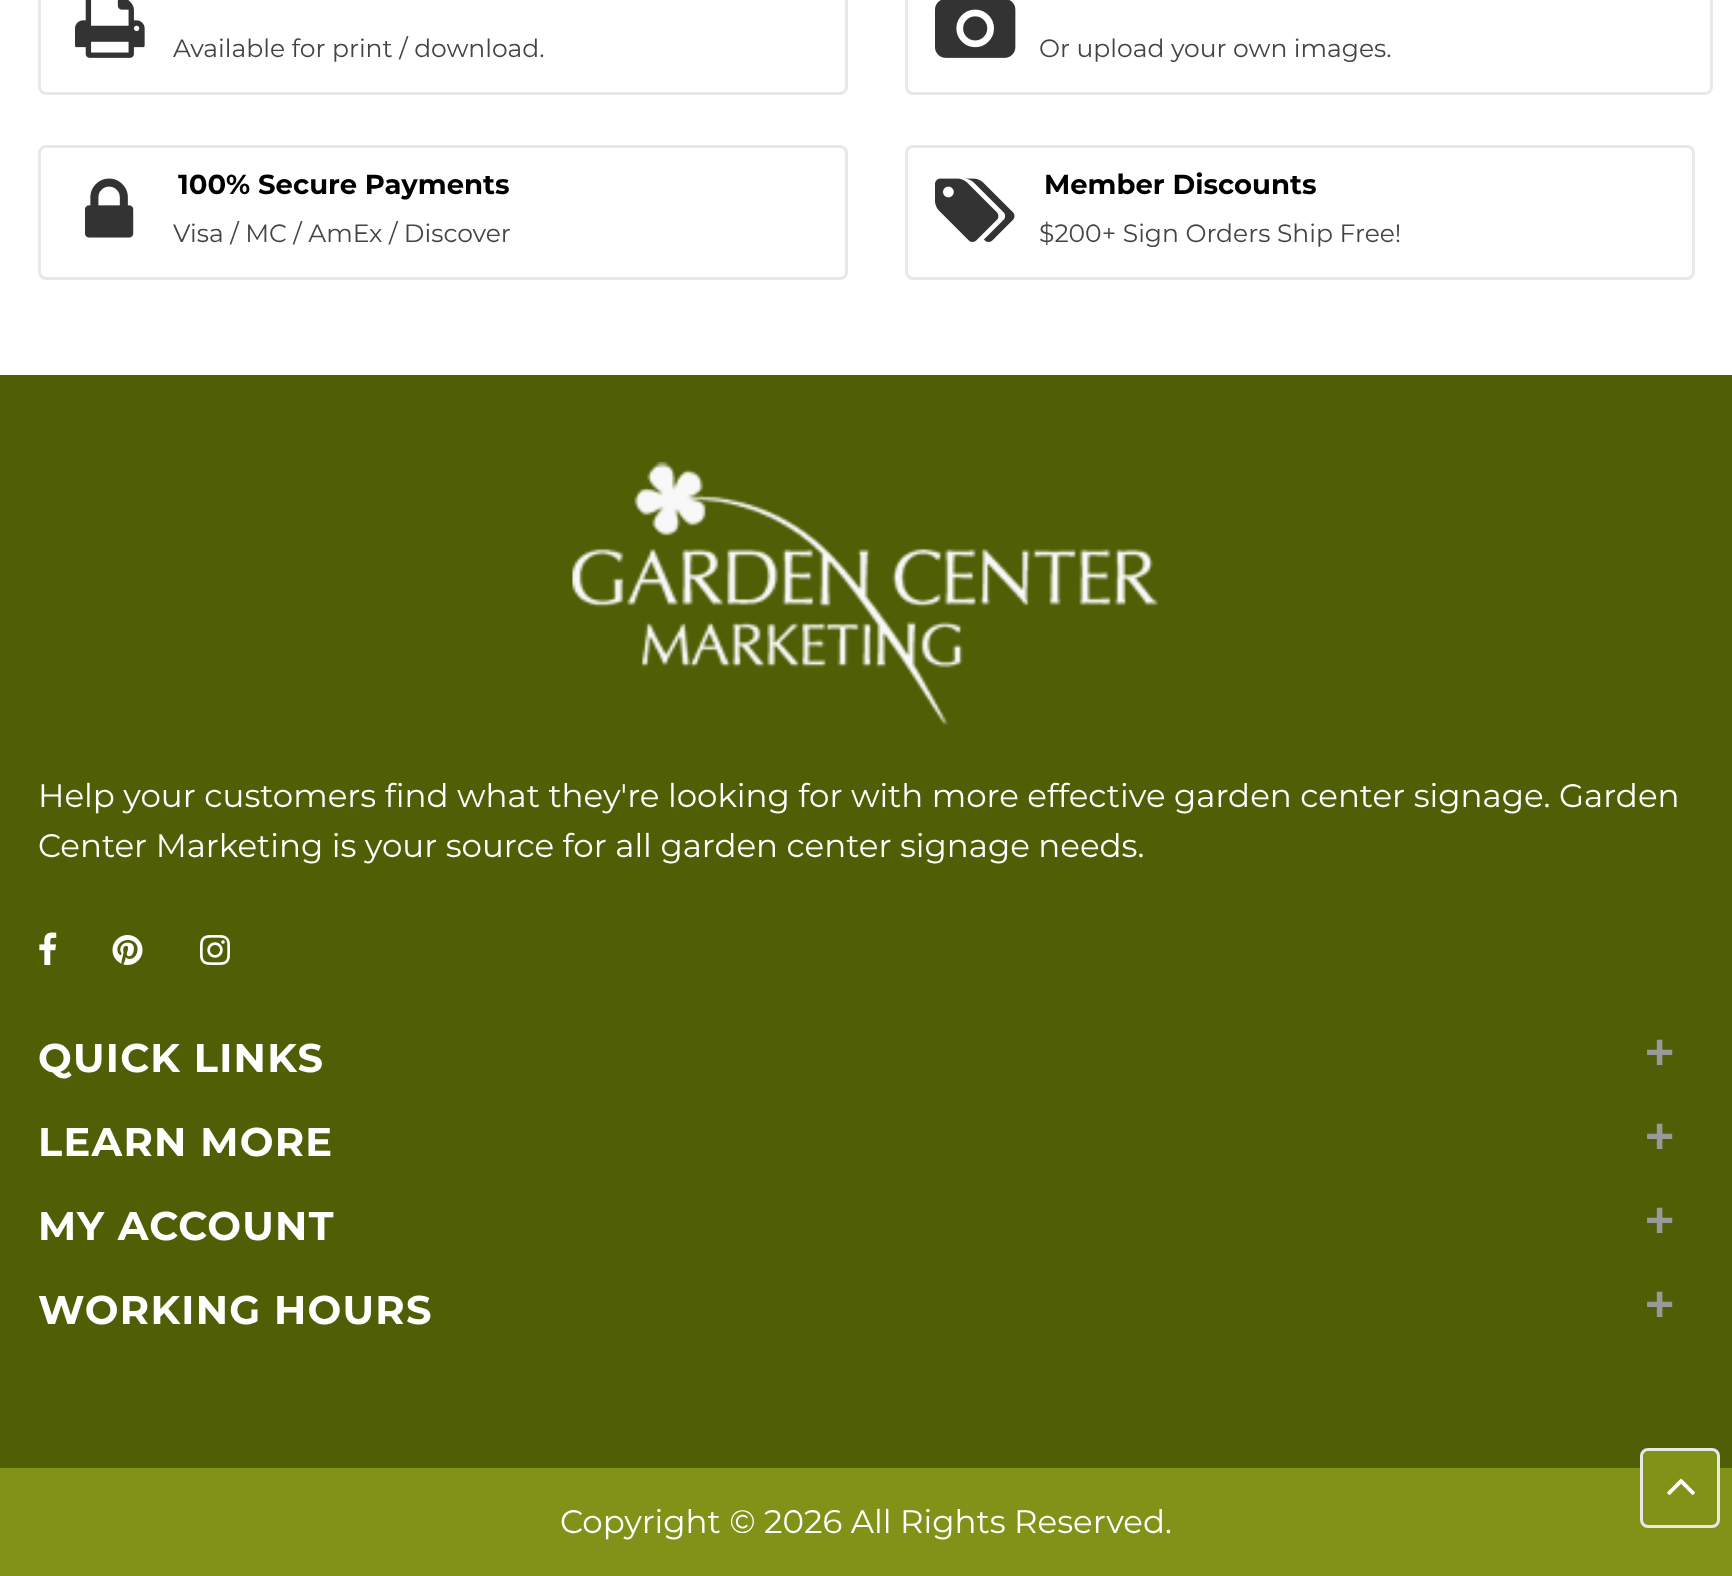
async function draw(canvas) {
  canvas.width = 1732;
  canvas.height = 1576;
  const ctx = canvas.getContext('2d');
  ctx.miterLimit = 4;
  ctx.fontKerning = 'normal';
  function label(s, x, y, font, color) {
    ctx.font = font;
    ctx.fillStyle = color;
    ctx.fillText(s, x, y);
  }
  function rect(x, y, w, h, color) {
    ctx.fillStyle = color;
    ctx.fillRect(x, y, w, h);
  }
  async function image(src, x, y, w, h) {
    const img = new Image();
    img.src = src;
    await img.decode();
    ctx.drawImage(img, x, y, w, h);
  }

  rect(0, 0, 1732, 1576, '#fff');
  ctx.beginPath();
  ctx.roundRect(39.5, -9.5, 807, 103, 6.5);
  ctx.strokeStyle = '#e8e8e8';
  ctx.lineWidth = 3;
  ctx.stroke();
  await image('assets/img1.png', 75, 0, 70, 58);
  label('Available for print / download.', 173, 57, '25px Montserrat', '#444');
  ctx.beginPath();
  ctx.roundRect(906.5, -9.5, 805, 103, 6.5);
  ctx.stroke();
  await image('assets/img2.png', 935, 0, 81, 58);
  label('Or upload your own images.', 1039, 57, '25px Montserrat', '#444');
  ctx.beginPath();
  ctx.roundRect(39.5, 146.5, 807, 132, 6.5);
  ctx.stroke();
  await image('assets/img3.png', 85, 178, 49, 60);
  label('100% Secure Payments', 178, 194, 'bold 27.5px Montserrat', '#000');
  label('Visa / MC / AmEx / Discover', 173, 242, '25px Montserrat', '#444');
  ctx.beginPath();
  ctx.roundRect(906.5, 146.5, 787, 132, 6.5);
  ctx.stroke();
  await image('assets/img4.png', 935, 178, 80, 64);
  label('Member Discounts', 1044, 194, 'bold 27.5px Montserrat', '#000');
  label('$200+ Sign Orders Ship Free!', 1039, 242, '25px Montserrat', '#444');
  rect(0, 375, 1732, 1093, '#505e05');
  await image('assets/img5.png', 572, 462, 587, 263);
  label('Help your customers find what they\'re looking for with more effective garden center signage. Garden', 38, 807, '32.5px Montserrat', '#fff');
  label('Center Marketing is your source for all garden center signage needs.', 38, 857, '32.5px Montserrat', '#fff');
  await image('assets/img6.png', 39, 932, 18, 33);
  await image('assets/img7.png', 112, 935, 31, 30);
  await image('assets/img8.png', 200, 935, 30, 30);
  ctx.letterSpacing = '1.25px';
  label('QUICK LINKS', 38, 1072, 'bold 40px Montserrat', '#fff');
  label('+', 1645, 1069, 'bold 50px Liberation Sans', '#999');
  label('LEARN MORE', 38, 1156, 'bold 40px Montserrat', '#fff');
  label('+', 1645, 1153, 'bold 50px Liberation Sans', '#999');
  label('MY ACCOUNT', 38, 1240, 'bold 40px Montserrat', '#fff');
  label('+', 1645, 1237, 'bold 50px Liberation Sans', '#999');
  label('WORKING HOURS', 38, 1324, 'bold 40px Montserrat', '#fff');
  label('+', 1645, 1321, 'bold 50px Liberation Sans', '#999');
  rect(0, 1468, 1732, 108, '#809318');
  ctx.letterSpacing = '0px';
  label('Copyright © 2026 All Rights Reserved.', 560, 1533, '32.5px Montserrat', '#fff');
  ctx.fillStyle = '#809318';
  ctx.beginPath();
  ctx.roundRect(1641.5, 1449.5, 77, 77, 6.5);
  ctx.fill();
  ctx.stroke();
  await image('assets/img9.png', 1667, 1478, 28, 17);
}

draw(document.querySelector('canvas'));
